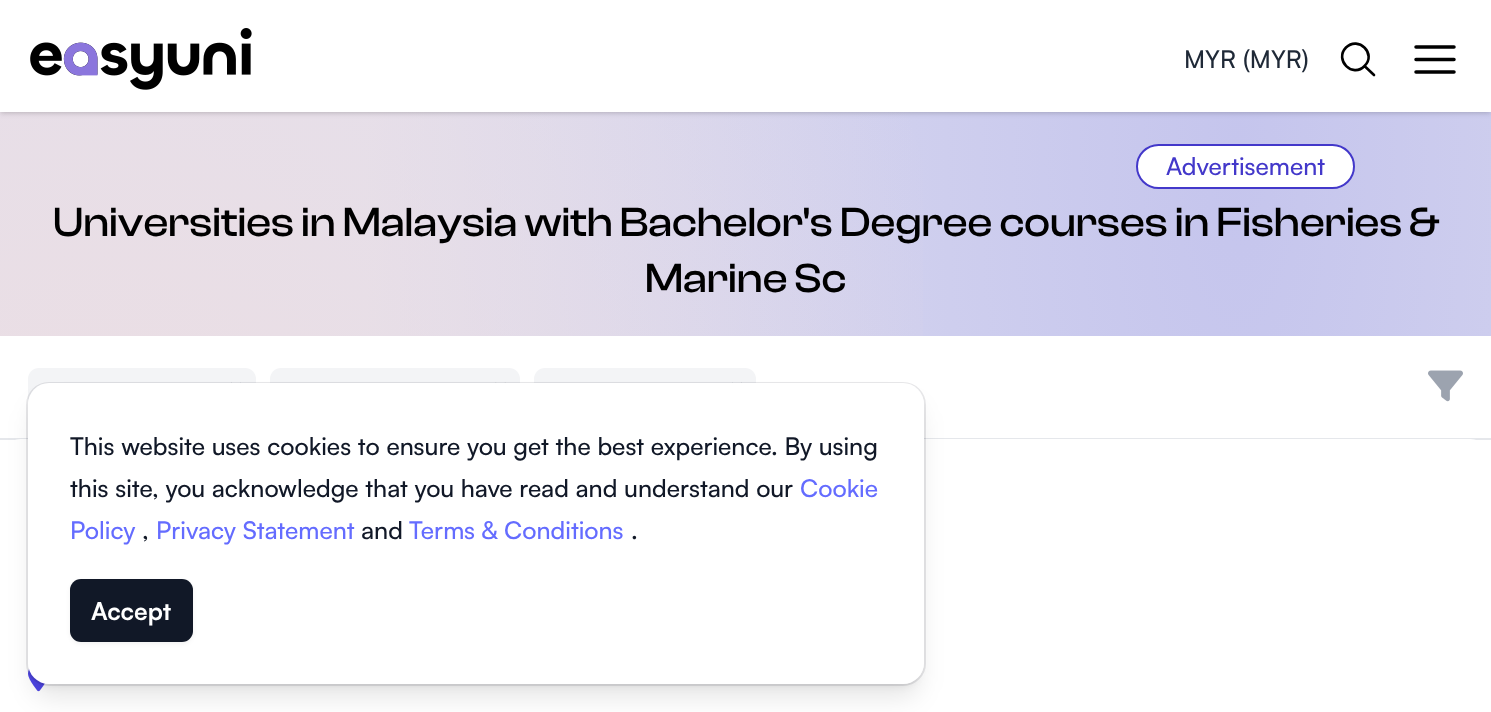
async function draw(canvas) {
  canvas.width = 1491;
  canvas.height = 712;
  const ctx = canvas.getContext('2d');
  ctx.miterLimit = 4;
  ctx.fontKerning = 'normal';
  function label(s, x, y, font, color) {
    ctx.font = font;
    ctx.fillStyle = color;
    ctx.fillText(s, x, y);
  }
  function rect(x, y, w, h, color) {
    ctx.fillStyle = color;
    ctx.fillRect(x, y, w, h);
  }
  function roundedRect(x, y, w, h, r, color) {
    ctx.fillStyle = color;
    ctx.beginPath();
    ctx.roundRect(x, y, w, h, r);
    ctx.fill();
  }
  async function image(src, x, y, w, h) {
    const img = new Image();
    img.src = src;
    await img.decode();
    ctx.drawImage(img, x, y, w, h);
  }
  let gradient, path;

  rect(0, 0, 1491, 712, '#fff');
  gradient = ctx.createRadialGradient(1238, 51.51, 0, 1238, 51.51, 1750);
  gradient.addColorStop(0, '#c5c5ed');
  gradient.addColorStop(0.5, '#e0e0f0');
  ctx.fillStyle = gradient;
  ctx.beginPath();
  ctx.rect(0, 112, 1491, 224);
  ctx.save();
  ctx.clip();
  ctx.scale(1, 5198 / 1750);
  ctx.fillRect(0, 0, 1491, 240);
  ctx.restore();
  gradient = ctx.createRadialGradient(89, 600.72, 0, 89, 600.72, 1982);
  gradient.addColorStop(0, '#f1dddd');
  gradient.addColorStop(0.5, '#f1dddd00');
  ctx.fillStyle = gradient;
  ctx.beginPath();
  ctx.rect(0, 112, 923, 224);
  ctx.save();
  ctx.clip();
  ctx.scale(1, 3791 / 1982);
  ctx.fillRect(0, 0, 1491, 373);
  ctx.restore();
  ctx.fillStyle = '#0000001a';
  ctx.filter = 'blur(2px)';
  ctx.beginPath();
  ctx.rect(2, 4, 1487, 108);
  ctx.fill();
  ctx.filter = 'none';
  ctx.filter = 'blur(2.5px)';
  ctx.beginPath();
  ctx.rect(0, 2, 1491, 112);
  ctx.fill();
  ctx.filter = 'none';
  rect(0, 0, 1491, 112, '#fff');
  await image('assets/img1.png', 30, 28, 222, 62);
  label('MYR', 1184, 68, '500 24.5px Satoshi', '#1f2937');
  label('(MYR)', 1243, 68, '500 24.5px Satoshi', '#1f2937');
  path = new Path2D('M1374 75L1364.5 66M1364.5 66C1377 54 1358.5 35.5 1346 47.5C1334 60 1352.5 78.5 1364.5 66Z');
  ctx.strokeStyle = '#000';
  ctx.lineWidth = 2.6;
  ctx.lineCap = 'round';
  ctx.lineJoin = 'round';
  ctx.stroke(path);
  path = new Path2D('M1416 47H1454M1416 59.5H1454M1416 72H1454');
  ctx.lineWidth = 3.5;
  ctx.stroke(path);
  ctx.fillStyle = '#fff';
  ctx.beginPath();
  ctx.roundRect(1137, 145, 217, 43, 21.5);
  ctx.fill();
  ctx.strokeStyle = '#4338ca';
  ctx.lineWidth = 2;
  ctx.lineJoin = 'miter';
  ctx.stroke();
  label('Advertisement', 1166, 175, '500 24.5px Satoshi', '#4338ca');
  label('Universities in Malaysia with Bachelor\'s Degree courses in Fisheries &', 53, 236, '500 42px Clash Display', '#000');
  label('Marine Sc', 645, 292, '500 42px Clash Display', '#000');
  roundedRect(28, 368, 228, 42, 11, '#f3f4f6');
  await image('assets/img2.png', 231, 382, 10, 1);
  roundedRect(270, 368, 250, 42, 11, '#f3f4f6');
  await image('assets/img3.png', 495, 382, 11, 1);
  roundedRect(534, 368, 222, 42, 11, '#f3f4f6');
  await image('assets/img4.png', 732, 382, 10, 1);
  await image('assets/img5.png', 1428, 370, 35, 32);
  rect(0, 438, 1491, 2, '#e5e7eb');
  roundedRect(0, 439, 1491, 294, 21, '#fff');
  await image('assets/img6.png', 28, 669, 18, 23);
  ctx.fillStyle = '#0000001a';
  ctx.filter = 'blur(5px)';
  ctx.beginPath();
  ctx.roundRect(35, 397, 882, 287, 14);
  ctx.fill();
  ctx.filter = 'none';
  ctx.filter = 'blur(13px)';
  ctx.beginPath();
  ctx.roundRect(33, 406, 886, 291, 16);
  ctx.fill();
  ctx.filter = 'none';
  ctx.beginPath();
  ctx.roundRect(27, 383, 898, 302, 22);
  ctx.strokeStyle = '#1118271a';
  ctx.stroke();
  roundedRect(28, 383, 896, 301, 21, '#fff');
  label('This website uses cookies to ensure you get the best experience. By using', 70, 455, '500 24.5px Satoshi', '#111827');
  label('this site, you acknowledge that you have read and understand our', 70, 497, '500 24.5px Satoshi', '#111827');
  label('Cookie', 800, 497, '500 24.5px Satoshi', '#646cff');
  label('Policy', 70, 539, '500 24.5px Satoshi', '#646cff');
  label(',', 142, 539, '500 24.5px Satoshi', '#111827');
  label('Privacy Statement', 156, 539, '500 24.5px Satoshi', '#646cff');
  label('and', 361, 539, '500 24.5px Satoshi', '#111827');
  label('Terms & Conditions', 409, 539, '500 24.5px Satoshi', '#646cff');
  label('.', 631, 539, '500 24.5px Satoshi', '#111827');
  ctx.fillStyle = '#0000000d';
  ctx.filter = 'blur(2px)';
  ctx.beginPath();
  ctx.roundRect(70, 581, 123, 63, 11);
  ctx.fill();
  ctx.filter = 'none';
  roundedRect(70, 579, 123, 63, 11, '#111827');
  label('Accept', 91, 620, 'bold 24.5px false', '#fff');
}

draw(document.querySelector('canvas'));
